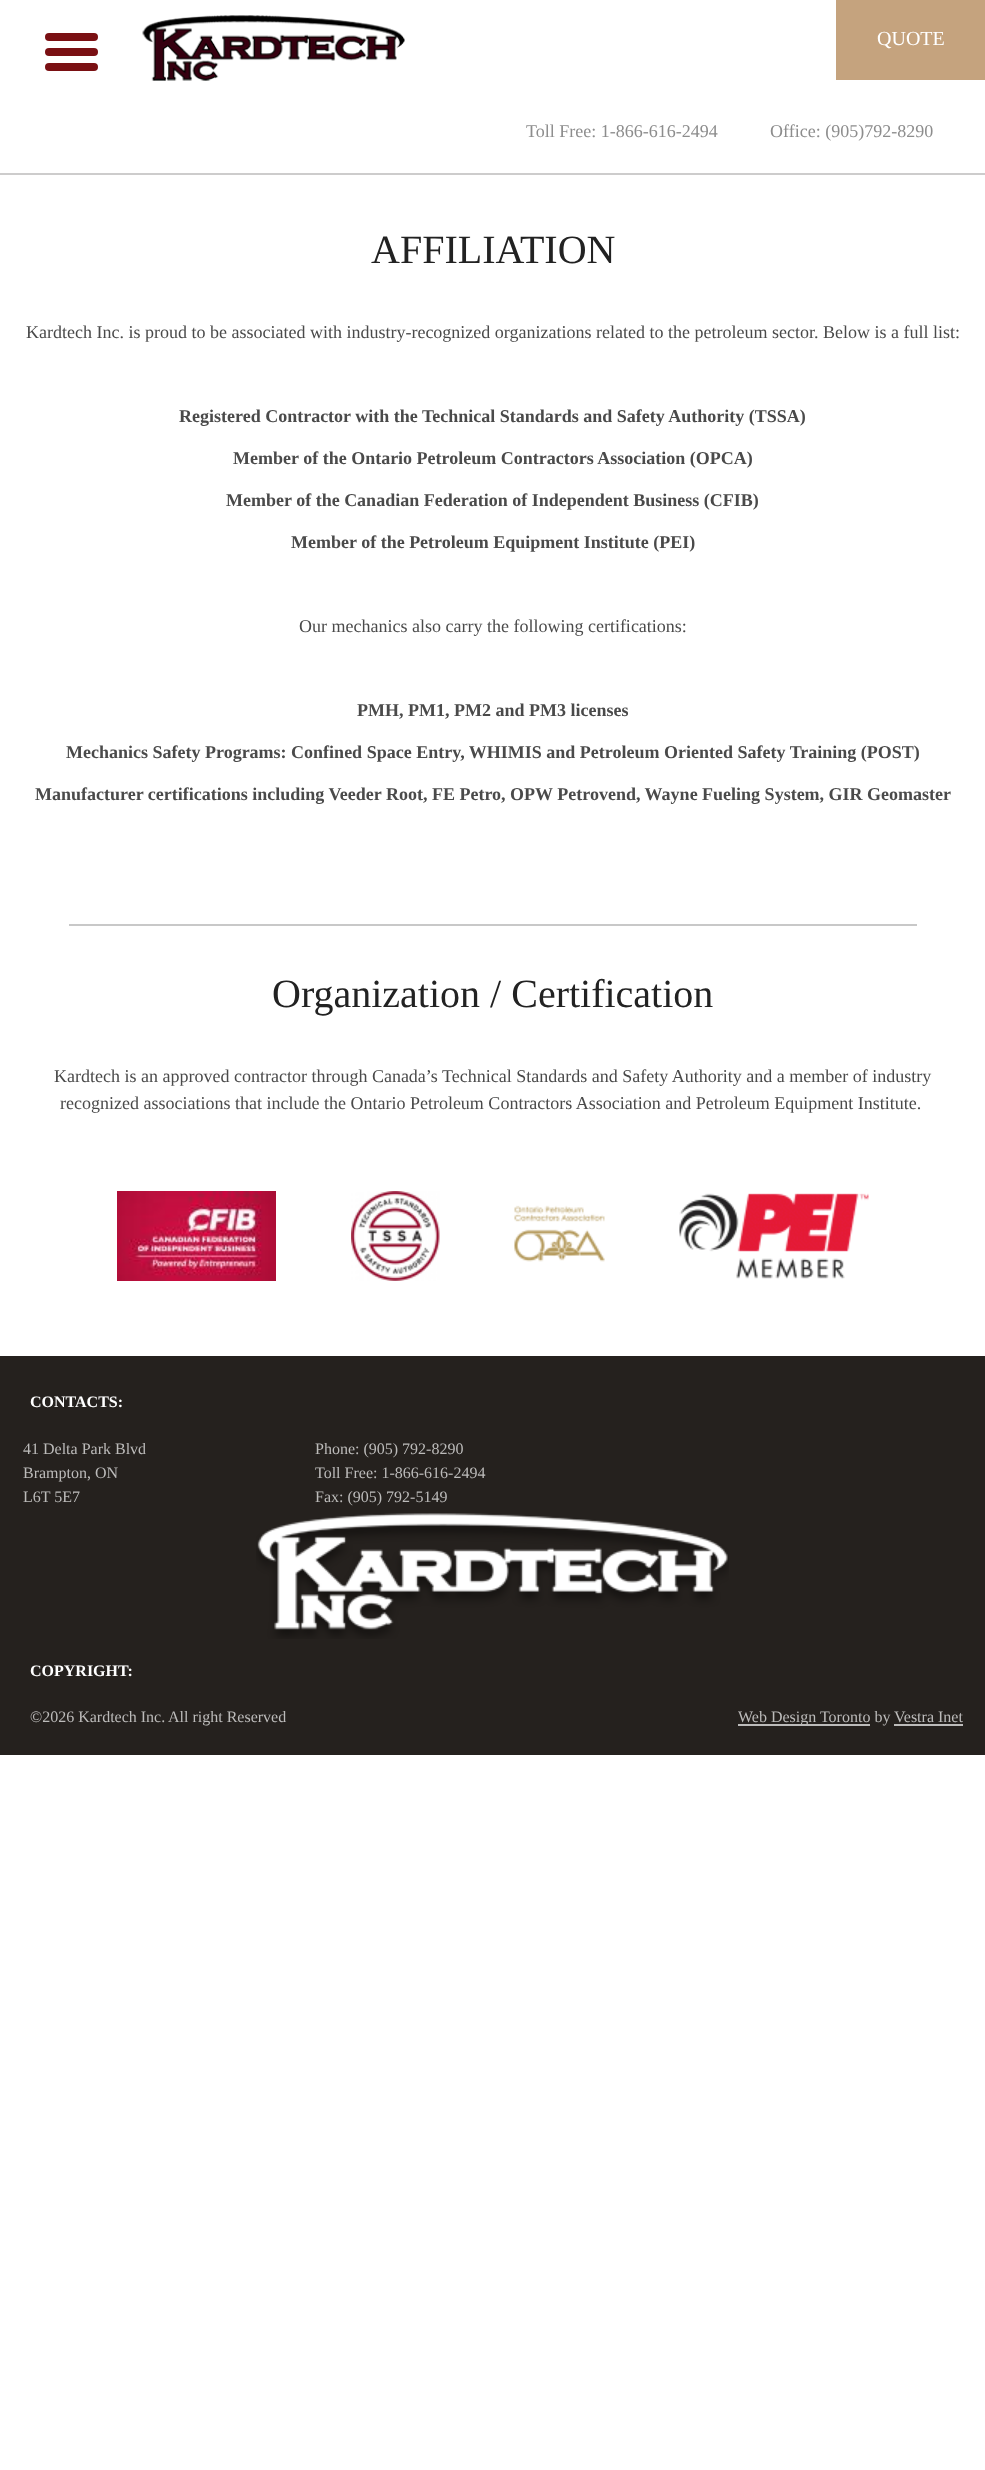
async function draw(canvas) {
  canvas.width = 985;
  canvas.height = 2470;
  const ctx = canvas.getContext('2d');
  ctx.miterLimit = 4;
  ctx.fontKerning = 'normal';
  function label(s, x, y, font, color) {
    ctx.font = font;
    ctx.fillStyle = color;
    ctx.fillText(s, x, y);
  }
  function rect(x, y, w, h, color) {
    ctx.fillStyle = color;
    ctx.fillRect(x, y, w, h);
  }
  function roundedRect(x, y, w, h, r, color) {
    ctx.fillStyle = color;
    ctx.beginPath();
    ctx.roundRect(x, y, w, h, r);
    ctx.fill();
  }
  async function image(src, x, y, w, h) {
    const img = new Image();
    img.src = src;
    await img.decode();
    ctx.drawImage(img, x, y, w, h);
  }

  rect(0, 0, 985, 2470, '#fff');
  rect(0, 173, 985, 2, '#cdcccc');
  roundedRect(45, 33, 53, 8, 4, '#7a1013');
  roundedRect(45, 48, 53, 8, 4, '#7a1013');
  roundedRect(45, 63, 53, 8, 4, '#7a1013');
  await image('assets/img1.png', 142, 15, 263, 66);
  rect(836, 0, 149, 80, '#c5a37e');
  label('QUOTE', 877, 45, '20px Liberation Serif', '#fff');
  label('Toll Free: 1-866-616-2494', 526, 137, '18px Liberation Serif', '#8d8d8d');
  label('Office: (905)792-8290', 770, 137, '18px Liberation Serif', '#8d8d8d');
  label('AFFILIATION', 371, 263, '40px Liberation Serif', '#222');
  label('Kardtech Inc. is proud to be associated with industry-recognized organizations related to the petroleum sector. Below is a full list:', 26, 338, '18px Liberation Serif', '#4a4a4a');
  label('Registered Contractor with the Technical Standards and Safety Authority (TSSA)', 179, 422, 'bold 18px Liberation Serif', '#4a4a4a');
  label('Member of the Ontario Petroleum Contractors Association (OPCA)', 233, 464, 'bold 18px Liberation Serif', '#4a4a4a');
  label('Member of the Canadian Federation of Independent Business (CFIB)', 226, 506, 'bold 18px Liberation Serif', '#4a4a4a');
  label('Member of the Petroleum Equipment Institute (PEI)', 291, 548, 'bold 18px Liberation Serif', '#4a4a4a');
  label('Our mechanics also carry the following certifications:', 299, 632, '18px Liberation Serif', '#4a4a4a');
  label('PMH, PM1, PM2 and PM3 licenses', 357, 716, 'bold 18px Liberation Serif', '#4a4a4a');
  label('Mechanics Safety Programs: Confined Space Entry, WHIMIS and Petroleum Oriented Safety Training (POST)', 66, 758, 'bold 18px Liberation Serif', '#4a4a4a');
  label('Manufacturer certifications including Veeder Root, FE Petro, OPW Petrovend, Wayne Fueling System, GIR Geomaster', 35, 800, 'bold 18px Liberation Serif', '#4a4a4a');
  rect(69, 924, 848, 2, '#c8c8c8');
  label('Organization / Certification', 272, 1007, '40px Liberation Serif', '#222');
  label('Kardtech is an approved contractor through Canada’s Technical Standards and Safety Authority and a member of industry', 54, 1082, '18px Liberation Serif', '#4a4a4a');
  label('recognized associations that include the Ontario Petroleum Contractors Association and Petroleum Equipment Institute.', 60, 1109, '18px Liberation Serif', '#4a4a4a');
  await image('assets/img2.png', 117, 1191, 159, 90);
  await image('assets/img3.png', 351, 1191, 89, 90);
  await image('assets/img4.png', 514, 1205, 91, 57);
  await image('assets/img5.png', 679, 1193, 190, 86);
  rect(0, 1356, 985, 399, '#25211e');
  label('CONTACTS:', 30, 1407, 'bold 16px Liberation Serif', '#fff');
  label('41 Delta Park Blvd', 23, 1454, '16px Liberation Serif', '#bcbbba');
  label('Brampton, ON', 23, 1478, '16px Liberation Serif', '#bcbbba');
  label('L6T 5E7', 23, 1502, '16px Liberation Serif', '#bcbbba');
  label('Phone: (905) 792-8290', 315, 1454, '16px Liberation Serif', '#bcbbba');
  label('Toll Free: 1-866-616-2494', 315, 1478, '16px Liberation Serif', '#bcbbba');
  label('Fax: (905) 792-5149', 315, 1502, '16px Liberation Serif', '#bcbbba');
  await image('assets/img6.png', 256, 1513, 473, 126);
  label('COPYRIGHT:', 30, 1676, 'bold 16px Liberation Serif', '#fff');
  label('©2026 Kardtech Inc.', 30, 1722, '16px Liberation Serif', '#bcbbba');
  label('All right Reserved', 168, 1722, '16px Liberation Serif', '#bcbbba');
  rect(738, 1724, 132, 2, '#bcbbba');
  label('Web Design Toronto by', 738, 1722, '16px Liberation Serif', '#bcbbba');
  label('Vestra Inet', 894, 1722, '16px Liberation Serif', '#bcbbba');
  rect(894, 1724, 69, 2, '#bcbbba');
}

draw(document.querySelector('canvas'));
